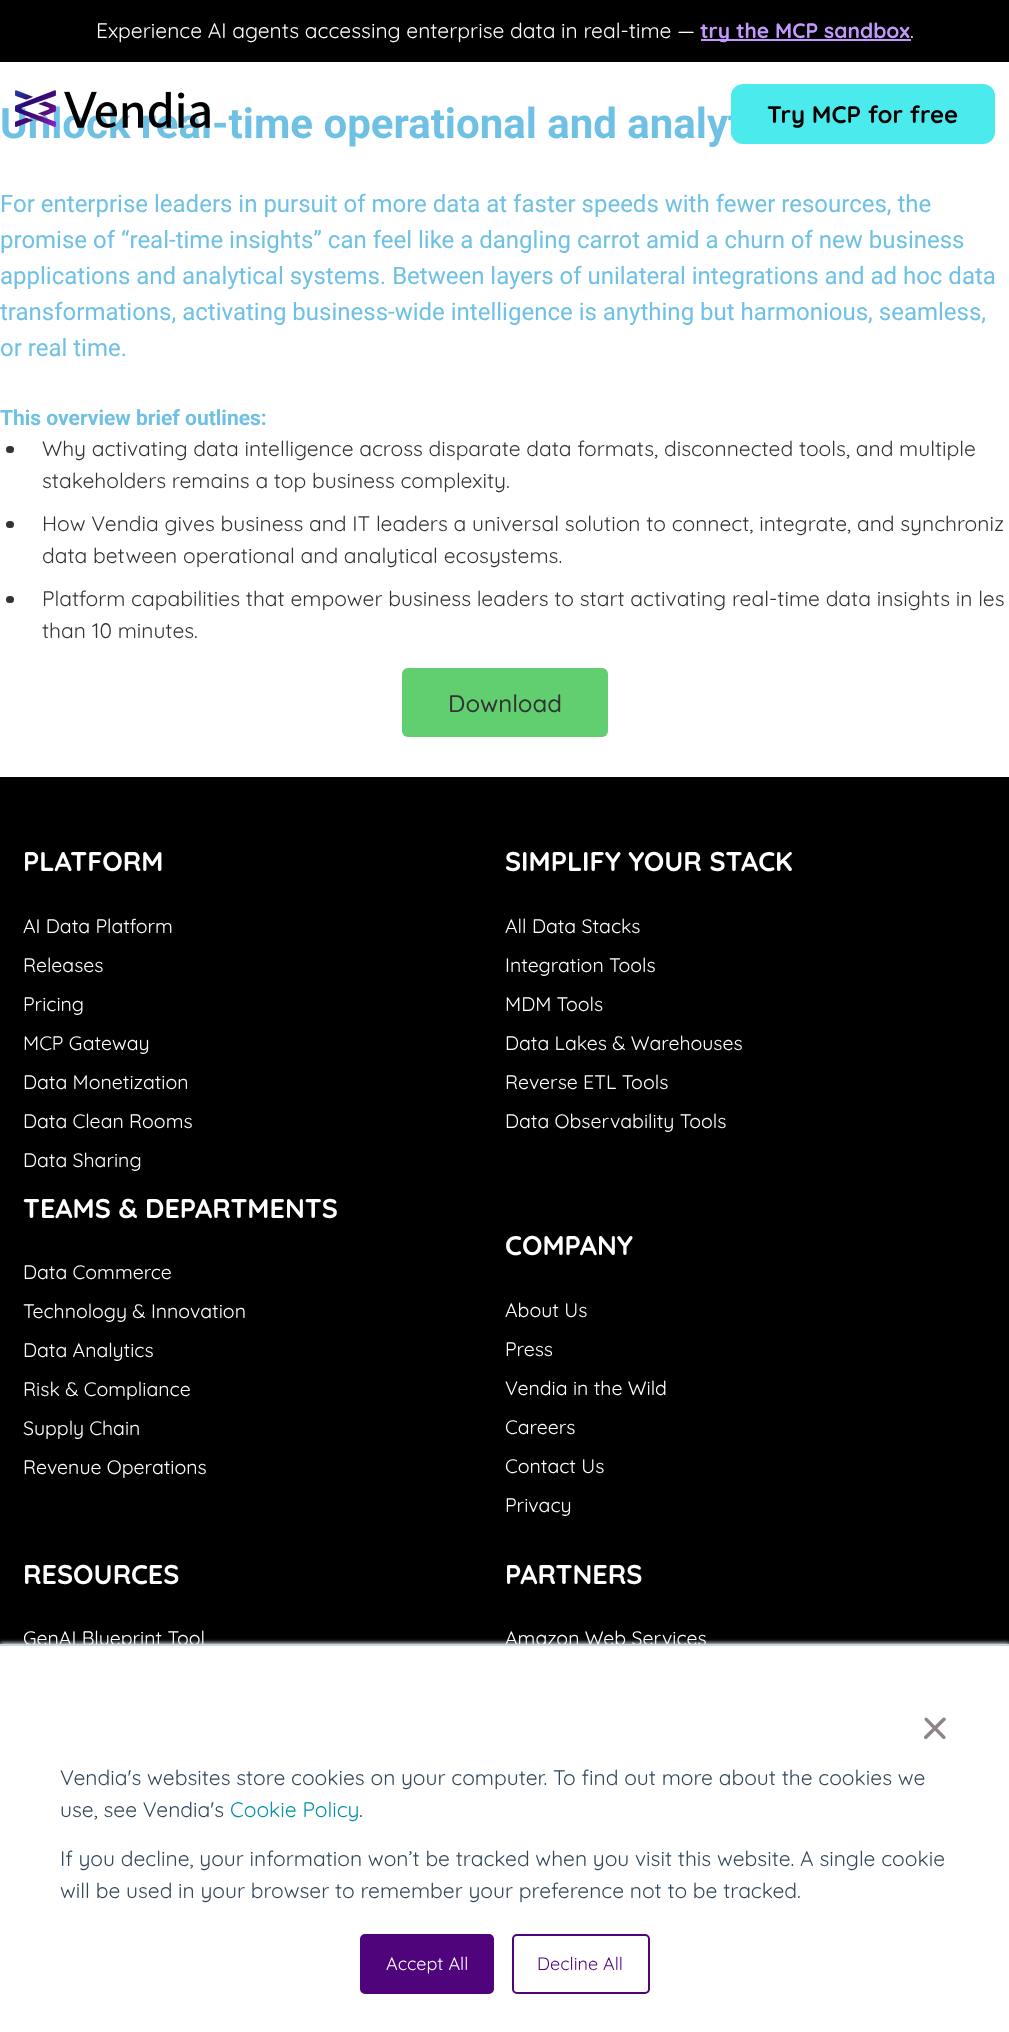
async function draw(canvas) {
  canvas.width = 1009;
  canvas.height = 2032;
  const ctx = canvas.getContext('2d');
  ctx.miterLimit = 4;
  ctx.fontKerning = 'normal';
  function label(s, x, y, font, color) {
    ctx.font = font;
    ctx.fillStyle = color;
    ctx.fillText(s, x, y);
  }
  function rect(x, y, w, h, color) {
    ctx.fillStyle = color;
    ctx.fillRect(x, y, w, h);
  }
  function roundedRect(x, y, w, h, r, color) {
    ctx.fillStyle = color;
    ctx.beginPath();
    ctx.roundRect(x, y, w, h, r);
    ctx.fill();
  }
  async function image(src, x, y, w, h) {
    const img = new Image();
    img.src = src;
    await img.decode();
    ctx.drawImage(img, x, y, w, h);
  }

  rect(0, 0, 1009, 2032, '#fff');
  rect(0, 0, 1009, 62, '#000');
  label('Experience AI agents accessing enterprise data in real-time —', 96, 38, '21px Quicksand', '#fff');
  rect(701, 39, 210, 2, '#c499ff');
  label('try the MCP sandbox', 700, 38, 'bold 21px Quicksand', '#c499ff');
  label('.', 910, 38, '21px Quicksand', '#fff');
  label('Unlock real-time operational and analyt', 0, 138, 'bold 42px Roboto', '#6ec1e4');
  await image('assets/img1.png', 15, 90, 195, 38);
  roundedRect(731, 84, 264, 60, 12, '#4beaec');
  label('Try MCP for free', 767, 123, 'bold 24px Quicksand', '#000');
  label('For enterprise leaders in pursuit of more data at faster speeds with fewer resources, the', 0, 212, '24px Roboto', '#6ec1e4');
  label('promise of “real-time insights” can feel like a dangling carrot amid a churn of new business', 0, 248, '24px Roboto', '#6ec1e4');
  label('applications and analytical systems. Between layers of unilateral integrations and ad hoc data', 0, 284, '24px Roboto', '#6ec1e4');
  label('transformations, activating business-wide intelligence is anything but harmonious, seamless,', 0, 320, '24px Roboto', '#6ec1e4');
  label('or real time.', 0, 356, '24px Roboto', '#6ec1e4');
  label('This overview brief outlines:', 0, 425, 'bold 21px Roboto', '#6ec1e4');
  roundedRect(6, 446, 8, 7, 3.5, '#333');
  label('Why activating data intelligence across disparate data formats, disconnected tools, and multiple', 42, 456, '21px Quicksand', '#333');
  label('stakeholders remains a top business complexity.', 42, 488, '21px Quicksand', '#333');
  roundedRect(6, 521, 8, 7, 3.5, '#333');
  label('How Vendia gives business and IT leaders a universal solution to connect, integrate, and synchroniz', 42, 531, '21px Quicksand', '#333');
  label('data between operational and analytical ecosystems.', 42, 563, '21px Quicksand', '#333');
  roundedRect(6, 596, 8, 7, 3.5, '#333');
  label('Platform capabilities that empower business leaders to start activating real-time data insights in les', 42, 606, '21px Quicksand', '#333');
  label('than 10 minutes.', 42, 638, '21px Quicksand', '#333');
  roundedRect(402, 668, 206, 69, 6, '#61ce70');
  label('Download', 448, 712, '500 24px Quicksand', '#333');
  rect(0, 777, 1009, 867, '#000');
  label('PLATFORM', 23, 871, 'bold 27px Quicksand', '#fff');
  label('AI Data Platform', 23, 933, '19.5px Quicksand', '#fff');
  label('Releases', 23, 972, '19.5px Quicksand', '#fff');
  label('Pricing', 23, 1011, '19.5px Quicksand', '#fff');
  label('MCP Gateway', 23, 1050, '19.5px Quicksand', '#fff');
  label('Data Monetization', 23, 1089, '19.5px Quicksand', '#fff');
  label('Data Clean Rooms', 23, 1128, '19.5px Quicksand', '#fff');
  label('Data Sharing', 23, 1167, '19.5px Quicksand', '#fff');
  label('SIMPLIFY YOUR STACK', 505, 871, 'bold 27px Quicksand', '#fff');
  label('All Data Stacks', 505, 933, '19.5px Quicksand', '#fff');
  label('Integration Tools', 505, 972, '19.5px Quicksand', '#fff');
  label('MDM Tools', 505, 1011, '19.5px Quicksand', '#fff');
  label('Data Lakes & Warehouses', 505, 1050, '19.5px Quicksand', '#fff');
  label('Reverse ETL Tools', 505, 1089, '19.5px Quicksand', '#fff');
  label('Data Observability Tools', 505, 1128, '19.5px Quicksand', '#fff');
  label('TEAMS & DEPARTMENTS', 23, 1218, 'bold 27px Quicksand', '#fff');
  label('Data Commerce', 23, 1279, '19.5px Quicksand', '#fff');
  label('Technology & Innovation', 23, 1318, '19.5px Quicksand', '#fff');
  label('Data Analytics', 23, 1357, '19.5px Quicksand', '#fff');
  label('Risk & Compliance', 23, 1396, '19.5px Quicksand', '#fff');
  label('Supply Chain', 23, 1435, '19.5px Quicksand', '#fff');
  label('Revenue Operations', 23, 1474, '19.5px Quicksand', '#fff');
  label('COMPANY', 505, 1255, 'bold 27px Quicksand', '#fff');
  label('About Us', 505, 1317, '19.5px Quicksand', '#fff');
  label('Press', 505, 1356, '19.5px Quicksand', '#fff');
  label('Vendia in the Wild', 505, 1395, '19.5px Quicksand', '#fff');
  label('Careers', 505, 1434, '19.5px Quicksand', '#fff');
  label('Contact Us', 505, 1473, '19.5px Quicksand', '#fff');
  label('Privacy', 505, 1512, '19.5px Quicksand', '#fff');
  label('RESOURCES', 23, 1584, 'bold 27px Quicksand', '#fff');
  label('GenAI Blueprint Tool', 23, 1645, '19.5px Quicksand', '#fff');
  label('PARTNERS', 505, 1584, 'bold 27px Quicksand', '#fff');
  label('Amazon Web Services', 505, 1645, '19.5px Quicksand', '#fff');
  ctx.fillStyle = '#eaf0f6';
  ctx.filter = 'blur(2px)';
  ctx.beginPath();
  ctx.rect(0, 1643, 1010, 388);
  ctx.fill();
  ctx.filter = 'none';
  rect(0, 1646, 1009, 386, '#fff');
  rect(0, 1644, 1009, 2, '#cbd6e2');
  label('×', 921, 1748, '60px Quicksand', '#8b8589');
  label('Vendia\'s websites store cookies on your computer. To find out more about the cookies we', 60, 1785, '21px Quicksand', '#33475b');
  label('use, see Vendia\'s', 60, 1817, '21px Quicksand', '#33475b');
  label('Cookie Policy', 230, 1817, '21px Quicksand', '#0091ae');
  label('.', 359, 1817, '21px Quicksand', '#33475b');
  label('If you decline, your information won’t be tracked when you visit this website. A single cookie', 60, 1866, '21px Quicksand', '#33475b');
  label('will be used in your browser to remember your preference not to be tracked.', 60, 1898, '21px Quicksand', '#33475b');
  ctx.fillStyle = '#4f047b';
  ctx.beginPath();
  ctx.roundRect(361, 1935, 132, 58, 4);
  ctx.fill();
  ctx.strokeStyle = '#4f047b';
  ctx.lineWidth = 2;
  ctx.stroke();
  label('Accept All', 386, 1970, '18px Quicksand', '#fff');
  ctx.beginPath();
  ctx.roundRect(513, 1935, 136, 58, 4);
  ctx.stroke();
  label('Decline All', 537, 1970, '18px Quicksand', '#4f047b');
}

draw(document.querySelector('canvas'));
